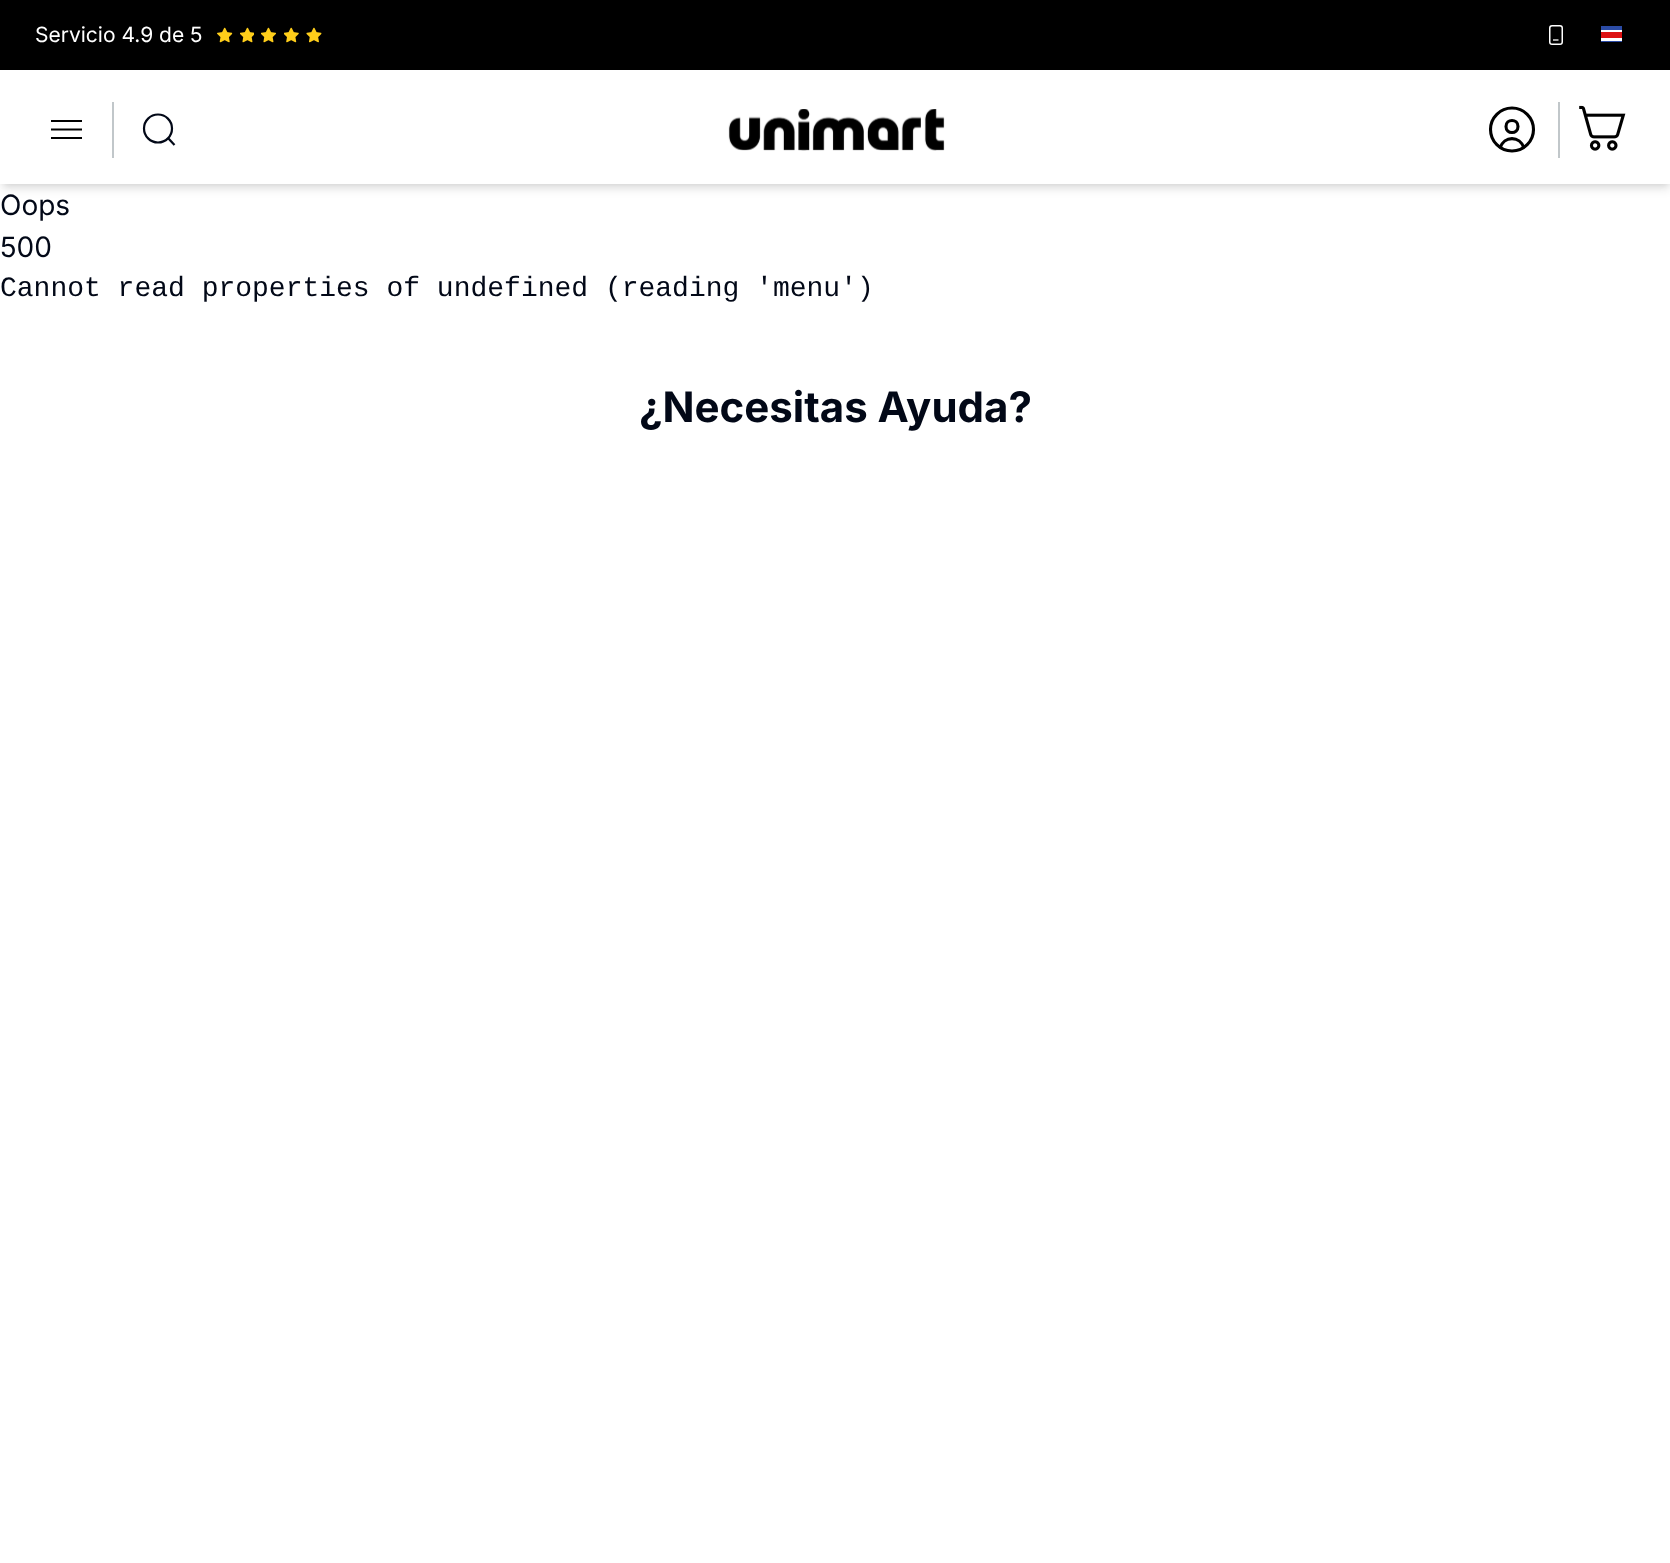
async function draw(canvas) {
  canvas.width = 1670;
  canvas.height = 1563;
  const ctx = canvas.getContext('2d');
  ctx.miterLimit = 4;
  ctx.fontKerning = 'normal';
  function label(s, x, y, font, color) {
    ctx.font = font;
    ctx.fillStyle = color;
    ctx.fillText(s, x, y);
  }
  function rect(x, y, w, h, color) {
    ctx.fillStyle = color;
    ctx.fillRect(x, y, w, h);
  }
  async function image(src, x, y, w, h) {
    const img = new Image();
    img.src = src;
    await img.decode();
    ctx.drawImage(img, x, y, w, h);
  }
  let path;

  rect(0, 0, 1670, 1563, '#fff');
  ctx.fillStyle = '#0000001a';
  ctx.filter = 'blur(3.5px)';
  ctx.beginPath();
  ctx.rect(4, 7, 1664, 177);
  ctx.fill();
  ctx.filter = 'none';
  ctx.filter = 'blur(5px)';
  ctx.beginPath();
  ctx.rect(2, 9, 1668, 180);
  ctx.fill();
  ctx.filter = 'none';
  rect(0, 70, 1670, 114, '#fff');
  rect(0, 0, 1670, 70, '#000');
  label('Servicio 4.9 de 5', 35, 42, '21px Inter', '#fff');
  await image('assets/img1.png', 217, 27, 16, 16);
  await image('assets/img2.png', 240, 27, 14, 16);
  await image('assets/img3.png', 261, 27, 15, 16);
  await image('assets/img4.png', 284, 27, 15, 16);
  await image('assets/img5.png', 306, 27, 16, 16);
  ctx.beginPath();
  ctx.roundRect(1549.75, 25.75, 12.5, 18.5, 2.25);
  ctx.strokeStyle = '#fff';
  ctx.lineWidth = 1.5;
  ctx.stroke();
  path = new Path2D('M1553 40H1558.5');
  ctx.lineWidth = 1.3;
  ctx.stroke(path);
  rect(1601, 26, 21, 16, '#2b4ba5');
  rect(1601, 30, 21, 11, '#fff');
  rect(1601, 32, 21, 6, '#dd1212');
  path = new Path2D('M51 121H82M51 129.5H82M51 138H82');
  ctx.strokeStyle = '#000';
  ctx.lineWidth = 2.2;
  ctx.stroke(path);
  rect(112, 102, 2, 56, '#c1c7ca');
  path = new Path2D('M174.5 145L168 138');
  ctx.strokeStyle = '#020817';
  ctx.stroke(path);
  ctx.beginPath();
  ctx.arc(158, 128.5, 14, 0, 2 * Math.PI);
  ctx.stroke();
  await image('assets/img6.png', 728, 109, 217, 42);
  path = new Path2D('M1524 148C1520 135.5 1504 135.5 1500 148M1518 126.5C1518 134.5 1506 134.5 1506 126.5C1506 118.5 1518 118.5 1518 126.5Z');
  ctx.strokeStyle = '#000';
  ctx.lineWidth = 3.1;
  ctx.stroke(path);
  ctx.beginPath();
  ctx.arc(1512, 129.5, 21.5, 0, 2 * Math.PI);
  ctx.stroke();
  rect(1558, 102, 2, 56, '#c1c7ca');
  await image('assets/img7.png', 1579, 105, 47, 46);
  label('Oops', 0, 215, '28px Inter', '#020817');
  label('500', 0, 257, '28px Inter', '#020817');
  label('Cannot read properties of undefined (reading \'menu\')', 0, 296, '28px Liberation Mono', '#020817');
  label('¿Necesitas Ayuda?', 639, 422, 'bold 42px Inter', '#020817');
}

draw(document.querySelector('canvas'));
